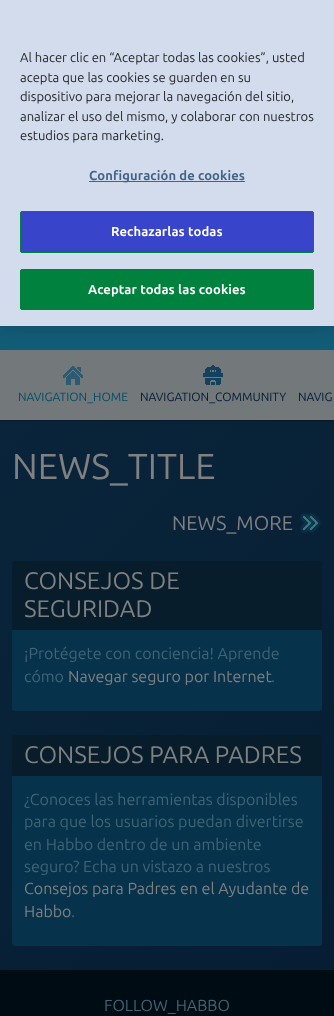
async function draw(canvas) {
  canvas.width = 334;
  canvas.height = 1016;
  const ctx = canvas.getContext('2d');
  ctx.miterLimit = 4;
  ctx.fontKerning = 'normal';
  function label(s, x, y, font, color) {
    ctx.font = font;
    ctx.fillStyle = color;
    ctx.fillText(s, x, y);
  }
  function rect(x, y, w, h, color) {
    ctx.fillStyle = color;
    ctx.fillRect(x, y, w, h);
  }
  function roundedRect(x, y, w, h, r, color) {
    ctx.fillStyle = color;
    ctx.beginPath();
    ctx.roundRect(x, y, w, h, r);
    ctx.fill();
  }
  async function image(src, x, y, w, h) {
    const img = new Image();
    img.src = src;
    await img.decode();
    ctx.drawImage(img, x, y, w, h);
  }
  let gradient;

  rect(0, 0, 334, 1016, '#000c13');
  rect(0, 326, 334, 24, '#135c77');
  rect(0, 350, 334, 70, '#73787b');
  ctx.fillStyle = '#00000033';
  ctx.filter = 'blur(9px)';
  ctx.beginPath();
  ctx.rect(0, 0, 334, 326);
  ctx.fill();
  ctx.filter = 'none';
  rect(0, 0, 334, 326, '#d2dced');
  label('Al hacer clic en “Aceptar todas las cookies”, usted', 20, 62, '13px Ubuntu', '#232628');
  label('acepta que las cookies se guarden en su', 20, 82, '13px Ubuntu', '#232628');
  label('dispositivo para mejorar la navegación del sitio,', 20, 101, '13px Ubuntu', '#232628');
  label('analizar el uso del mismo, y colaborar con nuestros', 20, 121, '13px Ubuntu', '#232628');
  label('estudios para marketing.', 20, 140, '13px Ubuntu', '#232628');
  rect(89, 181, 156, 1, '#416387');
  ctx.letterSpacing = '0.1px';
  label('Configuración de cookies', 89, 180, 'bold 13px Ubuntu', '#416387');
  ctx.fillStyle = '#3844c9';
  ctx.beginPath();
  ctx.roundRect(20.5, 211.5, 293, 41, 1.5);
  ctx.fill();
  ctx.strokeStyle = '#00813d';
  ctx.stroke();
  label('Rechazarlas todas', 111, 236, 'bold 13px Ubuntu', '#fff');
  ctx.fillStyle = '#00813d';
  ctx.beginPath();
  ctx.roundRect(20.5, 269.5, 293, 40, 1.5);
  ctx.fill();
  ctx.stroke();
  label('Aceptar todas las cookies', 88, 294, 'bold 13px Ubuntu', '#fff');
  gradient = ctx.createLinearGradient(-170, 171, 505, 846);
  gradient.addColorStop(0, '#0b283e');
  gradient.addColorStop(1, '#061d33');
  ctx.fillStyle = gradient;
  ctx.fillRect(0, 420, 334, 550);
  await image('assets/img1.png', 63, 366, 20, 19);
  ctx.letterSpacing = '0px';
  label('NAVIGATION_HOME', 18, 401, '12px Ubuntu', '#004d66');
  await image('assets/img2.png', 203, 365, 20, 20);
  label('NAVIGATION_COMMUNITY', 140, 401, '12px Ubuntu', '#001a33');
  label('NAVIG', 298, 401, '12px Ubuntu', '#001a33');
  gradient = ctx.createLinearGradient(167, 420, 167, 422);
  gradient.addColorStop(0, '#0000004d');
  gradient.addColorStop(1, '#00000000');
  ctx.fillStyle = gradient;
  ctx.fillRect(0, 420, 334, 2);
  label('NEWS_TITLE', 12, 479, '36px Ubuntu', '#808080');
  label('NEWS_MORE', 172, 530, '20px Ubuntu', '#808080');
  await image('assets/img3.png', 299, 512, 23, 22);
  roundedRect(12, 561, 310, 150, 3, '#06324b');
  ctx.fillStyle = '#071d2b';
  ctx.beginPath();
  ctx.roundRect(12, 561, 310, 69, [3, 3, 0, 0]);
  ctx.fill();
  label('CONSEJOS DE', 24, 589, '24px Ubuntu', '#808080');
  label('SEGURIDAD', 24, 617, '24px Ubuntu', '#808080');
  label('¡Protégete con conciencia! Aprende', 24, 659, '16px Ubuntu', '#3f6577');
  label('cómo', 24, 682, '16px Ubuntu', '#3f6577');
  label('Navegar seguro por Internet', 68, 682, '16px Ubuntu', '#808080');
  label('.', 271, 682, '16px Ubuntu', '#3f6577');
  roundedRect(12, 735, 310, 211, 3, '#06324b');
  ctx.fillStyle = '#071d2b';
  ctx.beginPath();
  ctx.roundRect(12, 735, 310, 41, [3, 3, 0, 0]);
  ctx.fill();
  label('CONSEJOS PARA PADRES', 24, 763, '24px Ubuntu', '#808080');
  label('¿Conoces las herramientas disponibles', 24, 805, '16px Ubuntu', '#3f6577');
  label('para que los usuarios puedan divertirse', 24, 827, '16px Ubuntu', '#3f6577');
  label('en Habbo dentro de un ambiente', 24, 850, '16px Ubuntu', '#3f6577');
  label('seguro? Echa un vistazo a nuestros', 24, 872, '16px Ubuntu', '#3f6577');
  label('Consejos para Padres en el Ayudante de', 24, 894, '16px Ubuntu', '#808080');
  label('Habbo', 24, 917, '16px Ubuntu', '#808080');
  label('.', 71, 917, '16px Ubuntu', '#3f6577');
  label('FOLLOW_HABBO', 104, 1011, '16px Ubuntu', '#3f6577');
}

draw(document.querySelector('canvas'));
